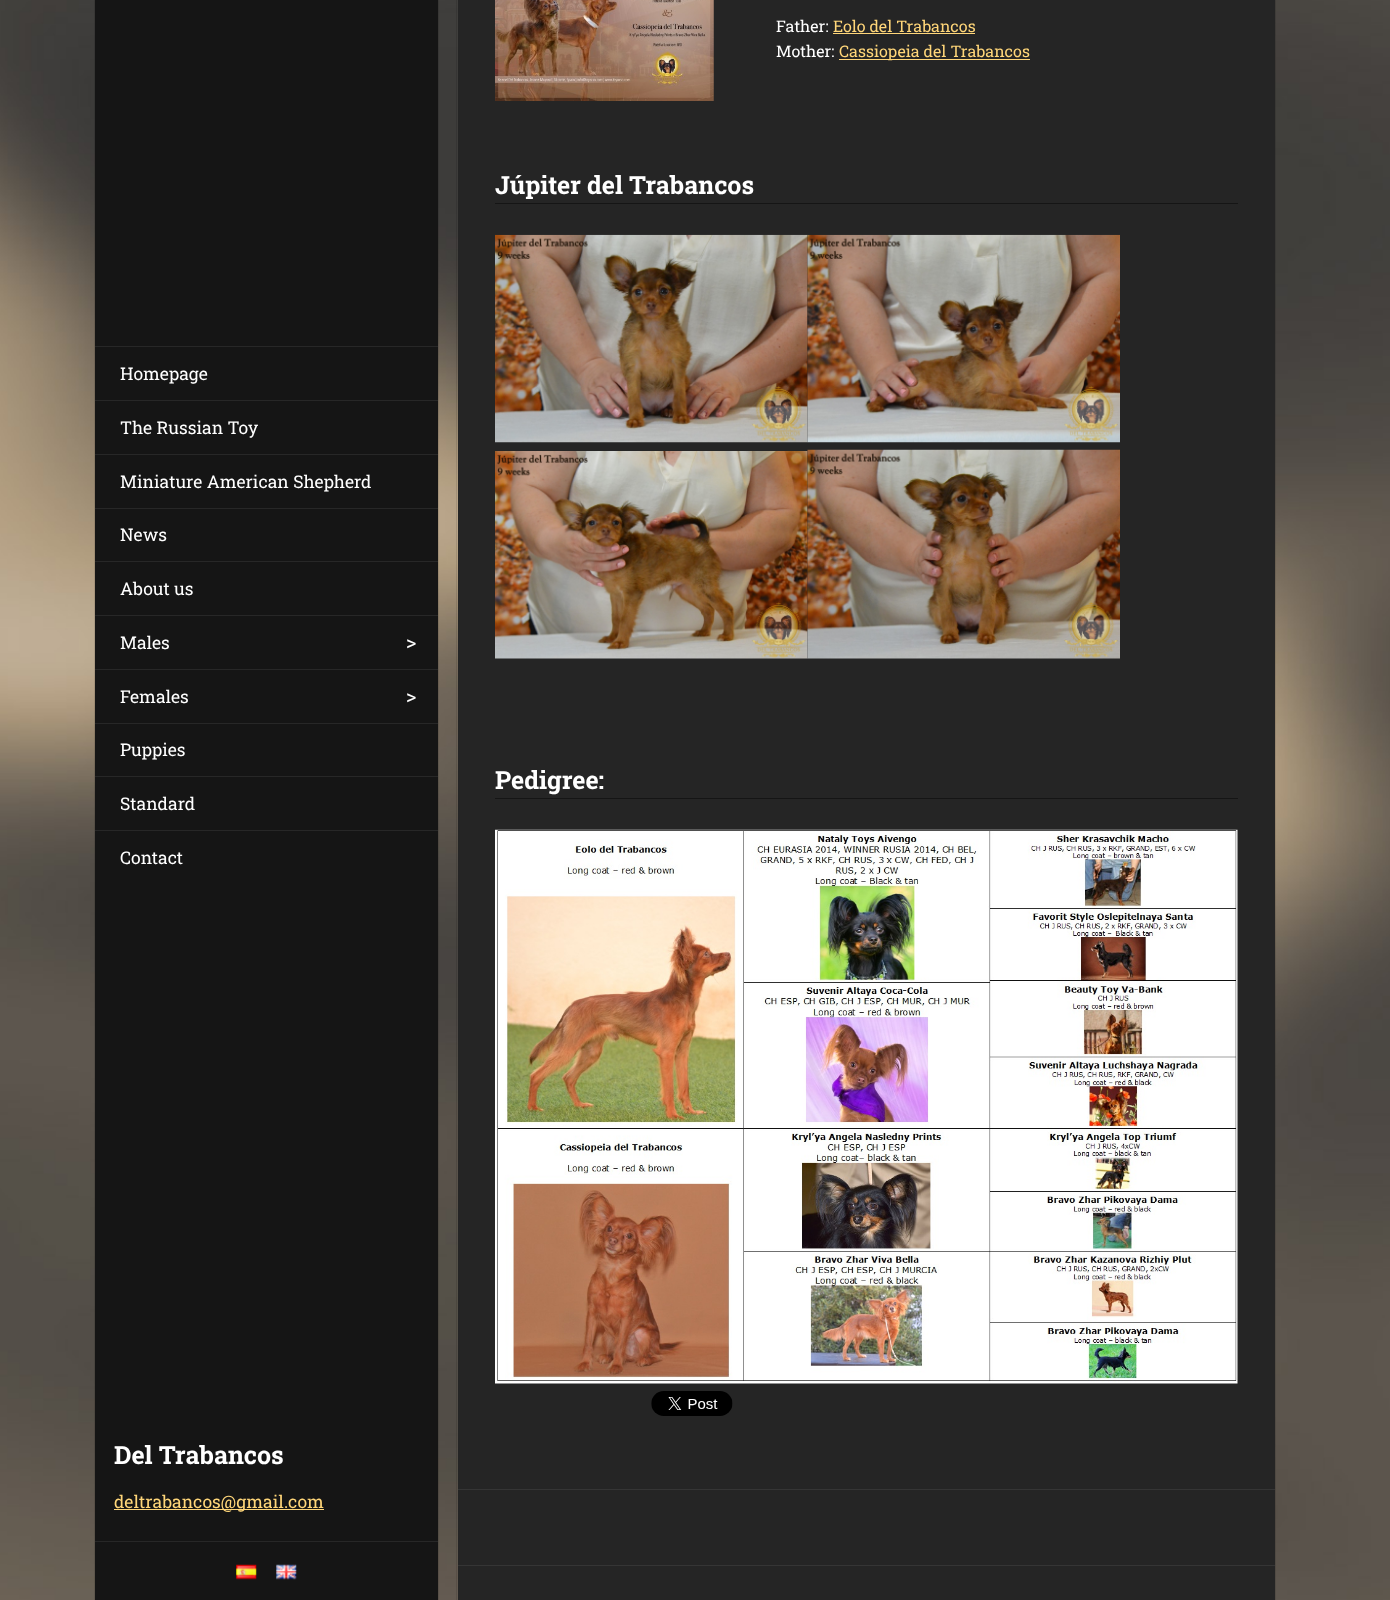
async function draw(canvas) {
  canvas.width = 1390;
  canvas.height = 1600;
  const ctx = canvas.getContext('2d');
  ctx.miterLimit = 4;
  ctx.fontKerning = 'normal';
  function label(s, x, y, font, color) {
    ctx.font = font;
    ctx.fillStyle = color;
    ctx.fillText(s, x, y);
  }
  function rect(x, y, w, h, color) {
    ctx.fillStyle = color;
    ctx.fillRect(x, y, w, h);
  }
  async function image(src, x, y, w, h) {
    const img = new Image();
    img.src = src;
    await img.decode();
    ctx.drawImage(img, x, y, w, h);
  }

  rect(0, 0, 1390, 1600, '#fff');
  await image('assets/img1.png', 0, 0, 1390, 1600);
  rect(95, 0, 343, 1600, '#151515');
  ctx.strokeStyle = '#0000001a';
  ctx.strokeRect(94.5, -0.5, 344, 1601);
  rect(95, 346, 343, 1, '#272727');
  label('Homepage', 120, 380, '17.5px Roboto Slab', '#fff');
  rect(95, 400, 343, 1, '#272727');
  label('The Russian Toy', 120, 434, '17.5px Roboto Slab', '#fff');
  rect(95, 454, 343, 1, '#272727');
  label('Miniature American Shepherd', 120, 488, '17.5px Roboto Slab', '#fff');
  rect(95, 508, 343, 1, '#272727');
  label('News', 120, 541, '17.5px Roboto Slab', '#fff');
  rect(95, 561, 343, 1, '#272727');
  label('About us', 120, 595, '17.5px Roboto Slab', '#fff');
  rect(95, 615, 343, 1, '#272727');
  label('Males', 120, 649, '17.5px Roboto Slab', '#fff');
  label('>', 406, 649, '20px Roboto Slab', '#fff');
  rect(95, 669, 343, 1, '#272727');
  label('Females', 120, 703, '17.5px Roboto Slab', '#fff');
  label('>', 406, 703, '20px Roboto Slab', '#fff');
  rect(95, 723, 343, 1, '#272727');
  label('Puppies', 120, 756, '17.5px Roboto Slab', '#fff');
  rect(95, 776, 343, 1, '#272727');
  label('Standard', 120, 810, '17.5px Roboto Slab', '#fff');
  rect(95, 830, 343, 1, '#272727');
  label('Contact', 120, 864, '17.5px Roboto Slab', '#fff');
  label('Del Trabancos', 114, 1464, 'bold 25px Roboto Slab', '#fff');
  rect(114, 1509, 210, 1, '#ffd679');
  label('deltrabancos@gmail.com', 114, 1508, '17.5px Roboto Slab', '#ffd679');
  rect(95, 1541, 343, 1, '#272727');
  await image('assets/img2.png', 236, 1564, 21, 16);
  await image('assets/img3.png', 276, 1564, 21, 16);
  ctx.strokeRect(456.5, -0.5, 819, 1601);
  rect(458, 0, 817, 1489, '#252525');
  await image('assets/img4.png', 495, 0, 219, 101);
  label('Father:', 776, 32, '16px Roboto Slab', '#fff');
  label('Eolo del Trabancos', 833, 32, '16px Roboto Slab', '#ffd679');
  rect(833, 33, 142, 1, '#ffd679');
  label('Mother:', 776, 57, '16px Roboto Slab', '#fff');
  rect(839, 59, 191, 1, '#ffd679');
  label('Cassiopeia del Trabancos', 839, 57, '16px Roboto Slab', '#ffd679');
  rect(495, 203, 743, 1, '#151515');
  label('Júpiter del Trabancos', 495, 194, 'bold 25px Roboto Slab', '#fff');
  await image('assets/img5.png', 495, 234, 313, 209);
  await image('assets/img6.png', 807, 234, 313, 209);
  await image('assets/img7.png', 495, 451, 313, 208);
  await image('assets/img8.png', 807, 449, 313, 210);
  rect(495, 798, 743, 1, '#151515');
  label('Pedigree:', 495, 789, 'bold 25px Roboto Slab', '#fff');
  await image('assets/img9.png', 495, 829, 743, 555);
  await image('assets/img10.png', 651, 1391, 82, 25);
  rect(458, 1489, 817, 1, '#353535');
  rect(458, 1490, 817, 75, '#252525');
  rect(458, 1566, 817, 34, '#252525');
  rect(458, 1565, 817, 1, '#353535');
}

draw(document.querySelector('canvas'));
